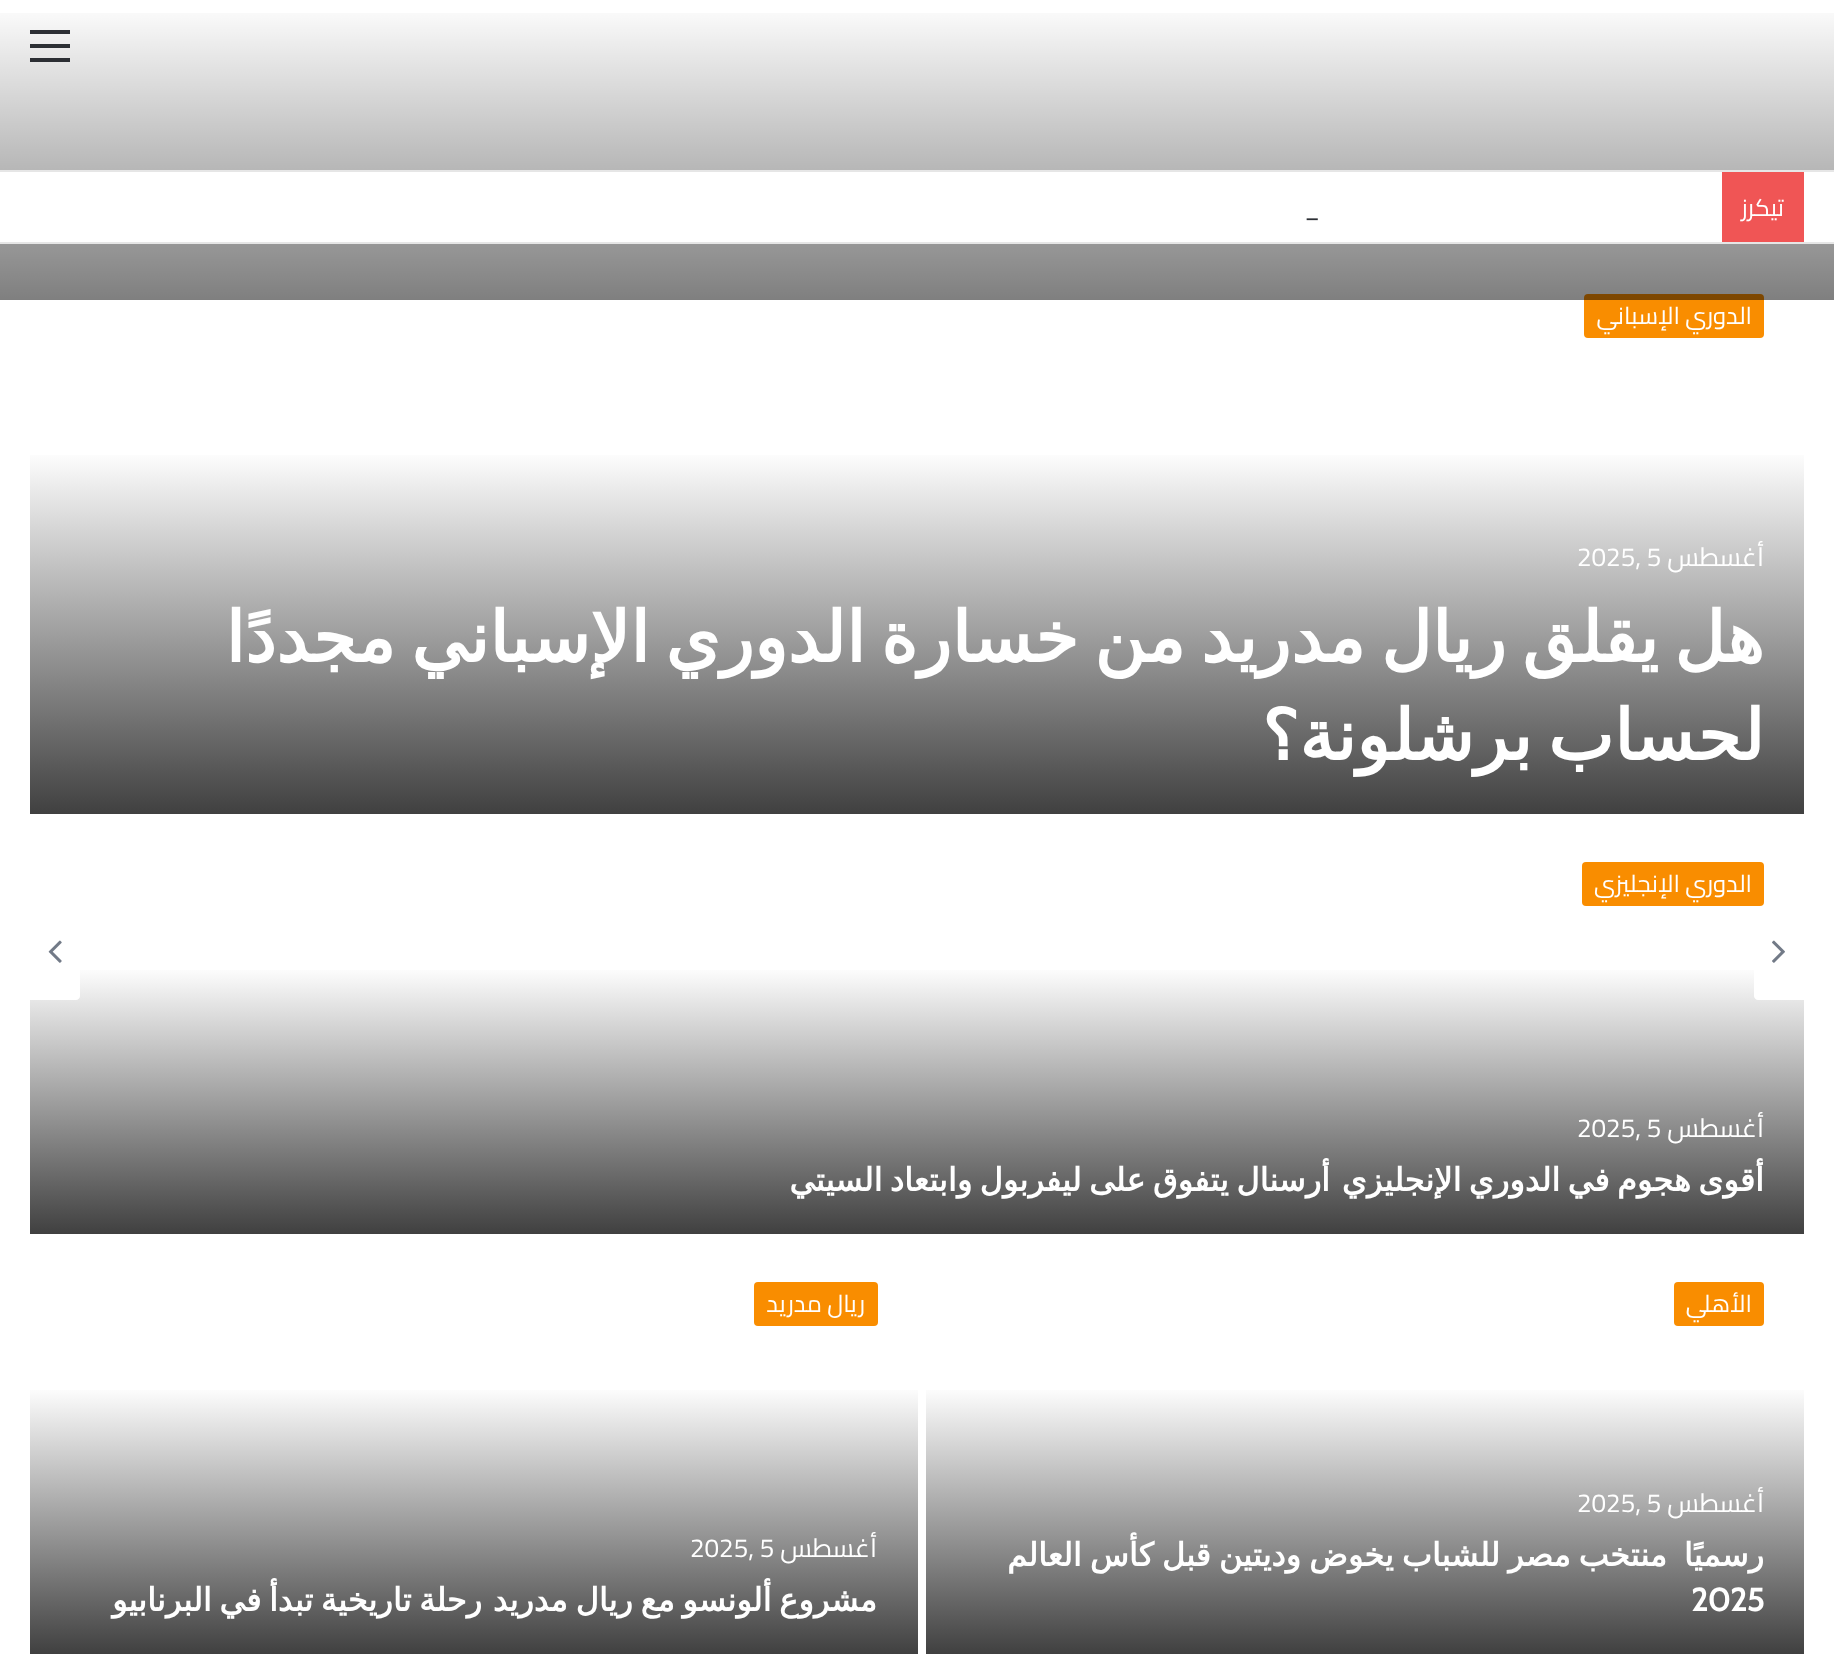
async function draw(canvas) {
  canvas.width = 1834;
  canvas.height = 1663;
  const ctx = canvas.getContext('2d');
  ctx.miterLimit = 4;
  ctx.fontKerning = 'normal';
  function label(s, x, y, font, color) {
    ctx.font = font;
    ctx.fillStyle = color;
    ctx.fillText(s, x, y);
  }
  function rect(x, y, w, h, color) {
    ctx.fillStyle = color;
    ctx.fillRect(x, y, w, h);
  }
  function roundedRect(x, y, w, h, r, color) {
    ctx.fillStyle = color;
    ctx.beginPath();
    ctx.roundRect(x, y, w, h, r);
    ctx.fill();
  }
  async function image(src, x, y, w, h) {
    const img = new Image();
    img.src = src;
    await img.decode();
    ctx.drawImage(img, x, y, w, h);
  }
  let gradient, path;

  rect(0, 0, 1834, 1663, '#fff');
  roundedRect(1584, 294, 180, 44, 4, '#f98d00');
  gradient = ctx.createLinearGradient(917, 0, 917, 300);
  gradient.addColorStop(0, '#00000000');
  gradient.addColorStop(1, '#00000080');
  ctx.fillStyle = gradient;
  ctx.fillRect(0, 13, 1834, 287);
  rect(30, 44, 40, 4, '#2c2f34');
  rect(30, 30, 40, 4, '#2c2f34');
  rect(30, 58, 40, 4, '#2c2f34');
  rect(0, 172, 1834, 70, '#fff');
  rect(0, 170, 1834, 2, '#e6e6e6');
  rect(0, 242, 1834, 2, '#e6e6e6');
  rect(1722, 172, 82, 70, '#f05555');
  ctx.direction = 'rtl';
  label('تيكرز', 1784, 216, '24px Cairo', '#fff');
  ctx.direction = 'ltr';
  label('_', 1304, 216, '26px Cairo', '#2c2f34');
  ctx.direction = 'rtl';
  label('الدوري الإسباني', 1752, 324, '24px Cairo', '#fff');
  gradient = ctx.createLinearGradient(917, 450, 917, 814);
  gradient.addColorStop(0, '#fff');
  gradient.addColorStop(1, '#404040');
  ctx.fillStyle = gradient;
  ctx.fillRect(30, 455, 1774, 359);
  label('أغسطس', 1764, 566, '26px Cairo', '#fff');
  ctx.direction = 'ltr';
  label('2025, 5', 1577, 566, '26px Cairo', '#fff');
  ctx.wordSpacing = '-6.5px';
  ctx.direction = 'rtl';
  label('هل يقلق ريال مدريد من خسارة الدوري الإسباني مجددًا', 1764, 662, 'bold 70px DejaVu Sans', '#fff');
  label('لحساب برشلونة؟', 1764, 760, 'bold 70px DejaVu Sans', '#fff');
  roundedRect(1582, 862, 182, 44, 4, '#f98d00');
  ctx.wordSpacing = '0px';
  label('الدوري الإنجليزي', 1752, 892, '24px Cairo', '#fff');
  gradient = ctx.createLinearGradient(917, 966, 917, 1234);
  gradient.addColorStop(0, '#fff');
  gradient.addColorStop(1, '#404040');
  ctx.fillStyle = gradient;
  ctx.fillRect(30, 970, 1774, 264);
  label('أغسطس', 1764, 1137, '26px Cairo', '#fff');
  ctx.direction = 'ltr';
  label('2025, 5', 1577, 1137, '26px Cairo', '#fff');
  ctx.wordSpacing = '-2.75px';
  ctx.direction = 'rtl';
  label('أقوى هجوم في الدوري الإنجليزي', 1764, 1191, 'bold 32px DejaVu Sans', '#fff');
  label('أرسنال يتفوق على ليفربول وابتعاد السيتي', 1330, 1191, 'bold 32px DejaVu Sans', '#fff');
  roundedRect(1674, 1282, 90, 44, 4, '#f98d00');
  ctx.wordSpacing = '0px';
  label('الأهلي', 1752, 1312, '24px Cairo', '#fff');
  gradient = ctx.createLinearGradient(1365, 1386, 1365, 1654);
  gradient.addColorStop(0, '#fff');
  gradient.addColorStop(1, '#404040');
  ctx.fillStyle = gradient;
  ctx.fillRect(926, 1390, 878, 264);
  label('أغسطس', 1764, 1512, '26px Cairo', '#fff');
  ctx.direction = 'ltr';
  label('2025, 5', 1577, 1512, '26px Cairo', '#fff');
  ctx.direction = 'rtl';
  label('رسميًا', 1764, 1566, 'bold 32px DejaVu Sans', '#fff');
  ctx.wordSpacing = '-2.25px';
  label('منتخب مصر للشباب يخوض وديتين قبل كأس العالم', 1667, 1566, 'bold 32px DejaVu Sans', '#fff');
  ctx.wordSpacing = '0px';
  ctx.direction = 'ltr';
  label('2025', 1691, 1611, 'bold 32px Cabin', '#fff');
  roundedRect(754, 1282, 124, 44, 4, '#f98d00');
  ctx.direction = 'rtl';
  label('ريال مدريد', 865, 1312, '24px Cairo', '#fff');
  gradient = ctx.createLinearGradient(474, 1386, 474, 1654);
  gradient.addColorStop(0, '#fff');
  gradient.addColorStop(1, '#404040');
  ctx.fillStyle = gradient;
  ctx.fillRect(30, 1390, 888, 264);
  label('أغسطس', 877, 1557, '26px Cairo', '#fff');
  ctx.direction = 'ltr';
  label('2025, 5', 690, 1557, '26px Cairo', '#fff');
  ctx.wordSpacing = '-2.5px';
  ctx.direction = 'rtl';
  label('مشروع ألونسو مع ريال مدريد', 877, 1611, 'bold 32px DejaVu Sans', '#fff');
  label('رحلة تاريخية تبدأ في البرنابيو', 482, 1611, 'bold 32px DejaVu Sans', '#fff');
  path = new Path2D('M1804 1000H1758C1756 1000 1754 998 1754 996V912C1754 910 1756 908 1758 908H1804Z');
  ctx.fill(path);
  await image('assets/img1.png', 1772, 940, 13, 23);
  path = new Path2D('M76 1000H30V908H76C78 908 80 910 80 912V996C80 998 78 1000 76 1000Z');
  ctx.fill(path);
  await image('assets/img2.png', 48, 940, 14, 23);
}

draw(document.querySelector('canvas'));
